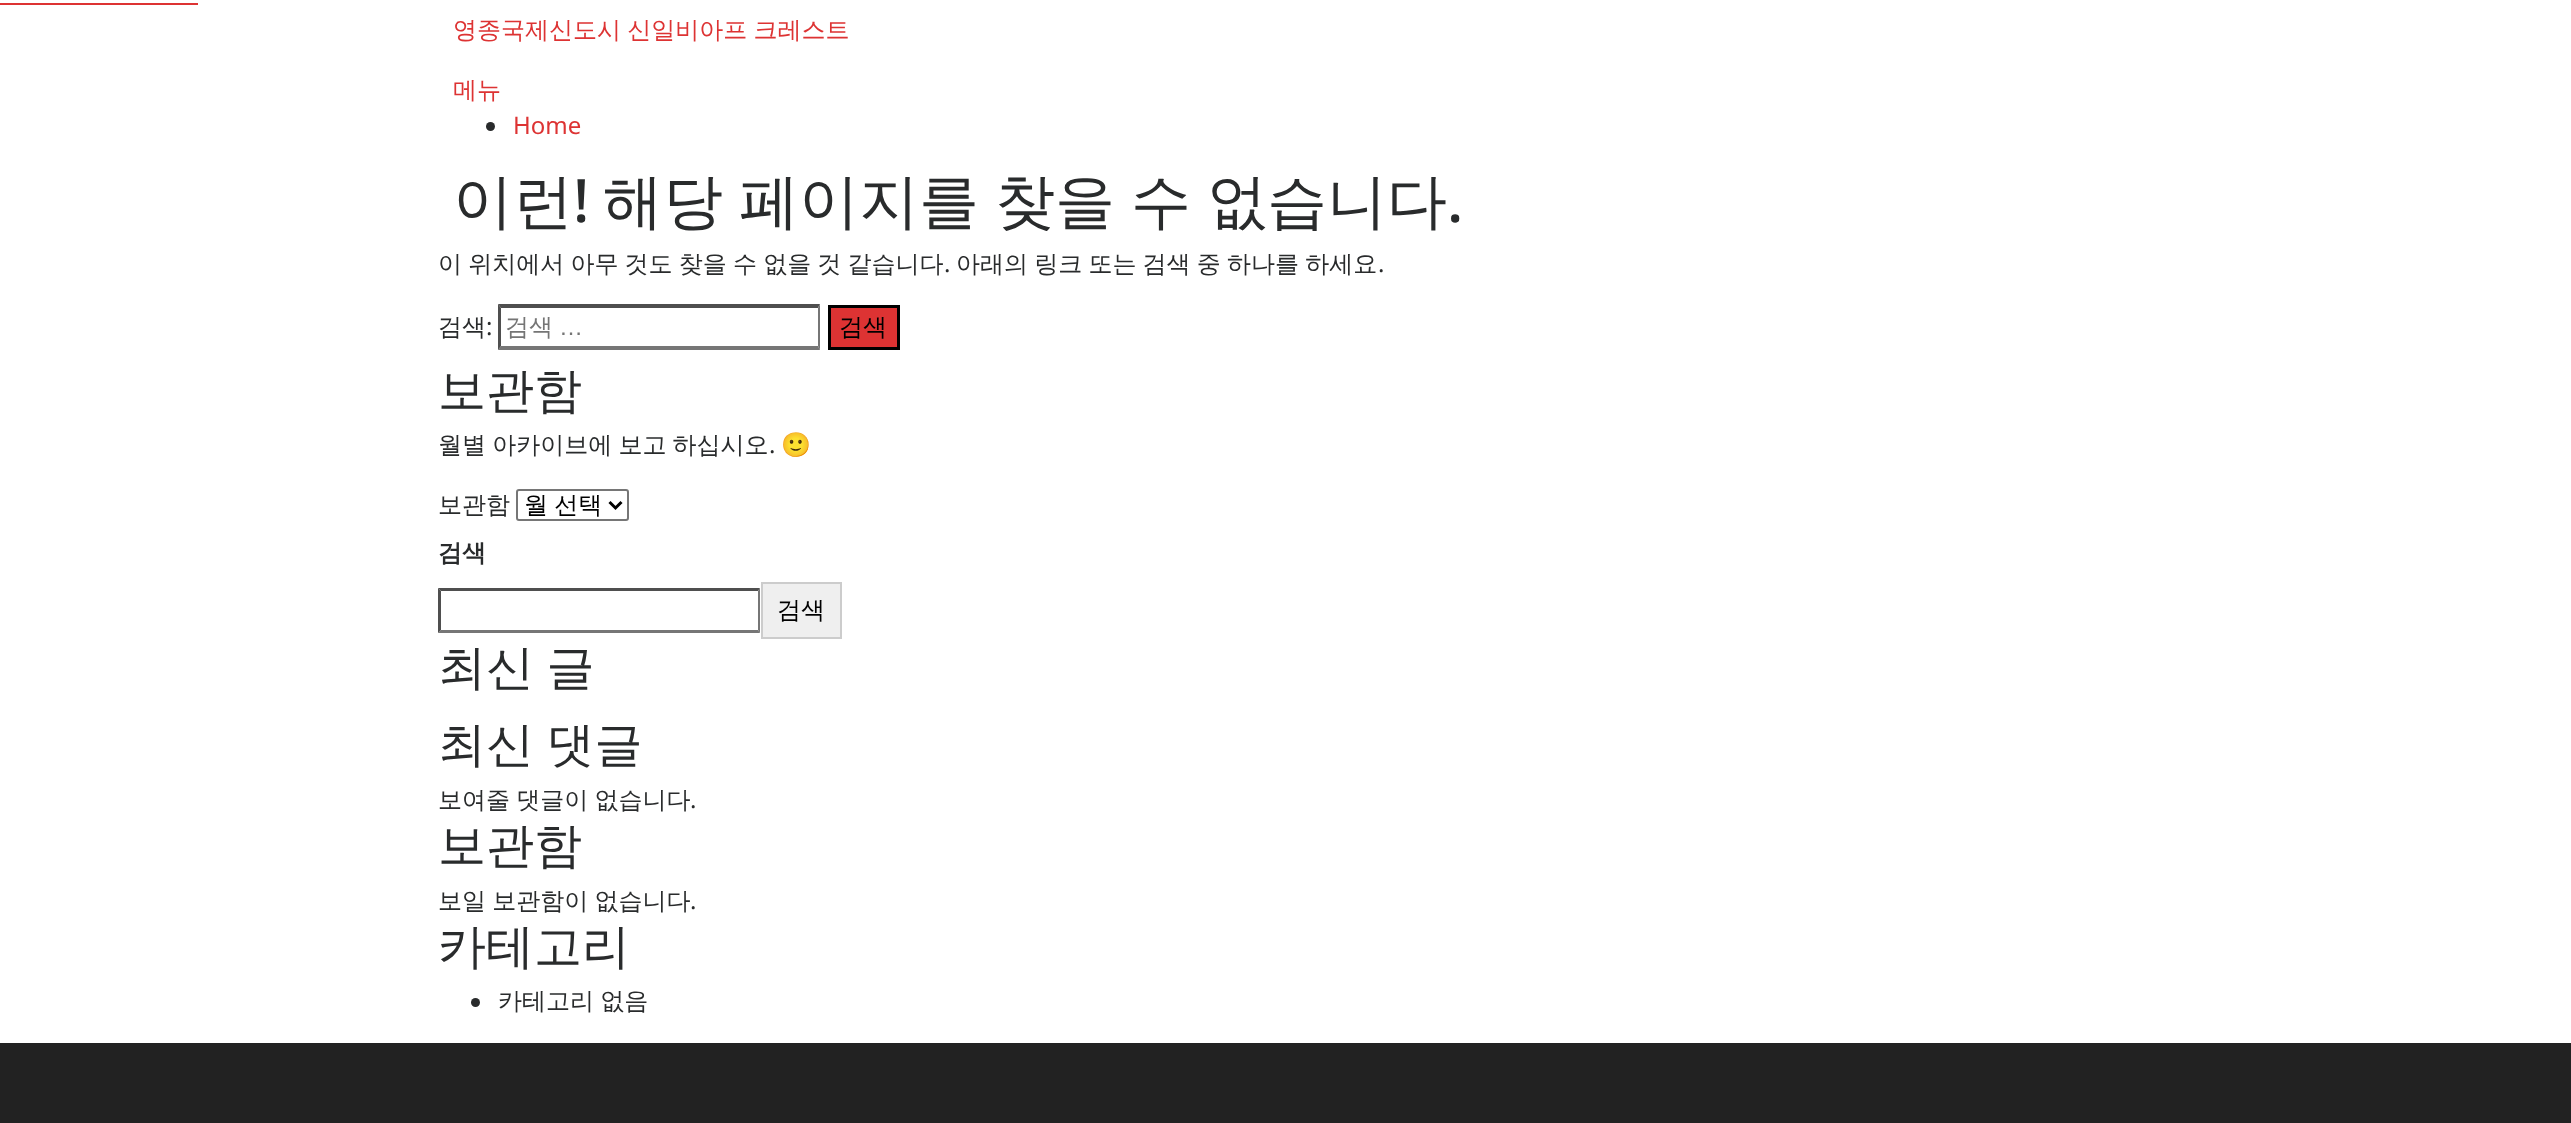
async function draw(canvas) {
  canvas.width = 2571;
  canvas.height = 1123;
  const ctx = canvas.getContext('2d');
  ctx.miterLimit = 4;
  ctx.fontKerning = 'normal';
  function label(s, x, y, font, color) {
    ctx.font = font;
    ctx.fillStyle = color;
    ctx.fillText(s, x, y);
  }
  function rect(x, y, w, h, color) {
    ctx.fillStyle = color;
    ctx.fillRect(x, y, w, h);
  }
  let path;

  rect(0, 0, 2571, 1123, '#fff');
  rect(0, 3, 198, 2, '#d33');
  ctx.wordSpacing = '-1px';
  label('영종국제신도시 신일비아프 크레스트', 453, 38, '500 24px WenQuanYi Zen Hei', '#d33');
  ctx.wordSpacing = '0px';
  label('메뉴', 453, 98, '500 24px WenQuanYi Zen Hei', '#d33');
  ctx.fillStyle = '#292b2c';
  ctx.beginPath();
  ctx.arc(490.5, 126.5, 4.5, 0, 2 * Math.PI);
  ctx.fill();
  label('Home', 513, 134, '24px Noto Sans', '#d33');
  label('이런', 453, 222, '500 60px WenQuanYi Zen Hei', '#292b2c');
  label('!', 573, 222, '500 60px Noto Sans', '#292b2c');
  ctx.wordSpacing = '-2px';
  label('해당 페이지를 찾을 수 없습니다', 603, 222, '500 60px WenQuanYi Zen Hei', '#292b2c');
  ctx.wordSpacing = '0px';
  label('.', 1447, 222, '500 60px Noto Sans', '#292b2c');
  ctx.wordSpacing = '-1px';
  label('이 위치에서 아무 것도 찾을 수 없을 것 같습니다', 438, 272, '500 24px WenQuanYi Zen Hei', '#292b2c');
  ctx.wordSpacing = '0px';
  label('.', 944, 272, '24px Noto Sans', '#292b2c');
  ctx.wordSpacing = '-1px';
  label('아래의 링크 또는 검색 중 하나를 하세요', 956, 272, '500 24px WenQuanYi Zen Hei', '#292b2c');
  ctx.wordSpacing = '0px';
  label('.', 1378, 272, '24px Noto Sans', '#292b2c');
  label('검색', 438, 335, '500 24px WenQuanYi Zen Hei', '#292b2c');
  label(':', 486, 335, '24px Noto Sans', '#292b2c');
  ctx.fillStyle = '#4f4f4f';
  path = new Path2D('M498 304H820L818 308H501Z');
  ctx.fill(path);
  ctx.fillStyle = '#767676';
  path = new Path2D('M820 304V350L818 346V308Z');
  ctx.fill(path);
  path = new Path2D('M820 350H498L501 346H818Z');
  ctx.fill(path);
  ctx.fillStyle = '#4f4f4f';
  path = new Path2D('M498 350V304L501 308V346Z');
  ctx.fill(path);
  label('검색', 505, 335, '500 24px WenQuanYi Zen Hei', '#757575');
  label('…', 559, 335, '24px Liberation Sans', '#757575');
  ctx.fillStyle = '#d33';
  ctx.beginPath();
  ctx.rect(829.5, 306.5, 69, 42);
  ctx.fill();
  ctx.strokeStyle = '#000';
  ctx.lineWidth = 3;
  ctx.stroke();
  label('검색', 839, 335, '500 24px WenQuanYi Zen Hei', '#000');
  label('보관함', 438, 407, '500 48px WenQuanYi Zen Hei', '#292b2c');
  ctx.wordSpacing = '-1px';
  label('월별 아카이브에 보고 하십시오', 438, 453, '500 24px WenQuanYi Zen Hei', '#292b2c');
  ctx.wordSpacing = '0px';
  label('.', 769, 453, '24px Noto Sans', '#292b2c');
  label('🙂', 781, 453, '24px Noto Color Emoji', '#292b2c');
  label('보관함', 438, 513, '500 24px WenQuanYi Zen Hei', '#292b2c');
  ctx.beginPath();
  ctx.roundRect(517, 490, 111, 30, 2);
  ctx.strokeStyle = '#767676';
  ctx.lineWidth = 2;
  ctx.stroke();
  path = new Path2D('M609.5 502L615.5 508L621.5 502');
  ctx.strokeStyle = '#000';
  ctx.lineWidth = 3;
  ctx.stroke(path);
  ctx.wordSpacing = '-1px';
  label('월 선택', 524, 513, '500 24px WenQuanYi Zen Hei', '#000');
  ctx.wordSpacing = '0px';
  label('검색', 438, 561, 'bold 24px WenQuanYi Zen Hei', '#292b2c');
  ctx.fillStyle = '#4f4f4f';
  path = new Path2D('M438 588H760L758 591H441Z');
  ctx.fill(path);
  ctx.fillStyle = '#767676';
  path = new Path2D('M760 588V633L758 630V591Z');
  ctx.fill(path);
  path = new Path2D('M760 633H438L441 630H758Z');
  ctx.fill(path);
  ctx.fillStyle = '#4f4f4f';
  path = new Path2D('M438 633V588L441 591V630Z');
  ctx.fill(path);
  ctx.fillStyle = '#efefef';
  ctx.beginPath();
  ctx.rect(762, 583, 79, 55);
  ctx.fill();
  ctx.strokeStyle = '#ccc';
  ctx.lineWidth = 2;
  ctx.stroke();
  label('검색', 777, 618, '500 24px WenQuanYi Zen Hei', '#000');
  ctx.wordSpacing = '-2px';
  label('최신 글', 438, 684, '500 48px WenQuanYi Zen Hei', '#292b2c');
  label('최신 댓글', 438, 761, '500 48px WenQuanYi Zen Hei', '#292b2c');
  ctx.wordSpacing = '-1px';
  label('보여줄 댓글이 없습니다', 438, 808, '500 24px WenQuanYi Zen Hei', '#292b2c');
  ctx.wordSpacing = '0px';
  label('.', 690, 808, '24px Noto Sans', '#292b2c');
  label('보관함', 438, 862, '500 48px WenQuanYi Zen Hei', '#292b2c');
  ctx.wordSpacing = '-1px';
  label('보일 보관함이 없습니다', 438, 909, '500 24px WenQuanYi Zen Hei', '#292b2c');
  ctx.wordSpacing = '0px';
  label('.', 690, 909, '24px Noto Sans', '#292b2c');
  label('카테고리', 438, 963, '500 48px WenQuanYi Zen Hei', '#292b2c');
  ctx.beginPath();
  ctx.arc(475.5, 1002.5, 4.5, 0, 2 * Math.PI);
  ctx.fill();
  ctx.wordSpacing = '-1px';
  label('카테고리 없음', 498, 1009, '500 24px WenQuanYi Zen Hei', '#292b2c');
  rect(0, 1043, 2571, 80, '#222');
}

draw(document.querySelector('canvas'));
